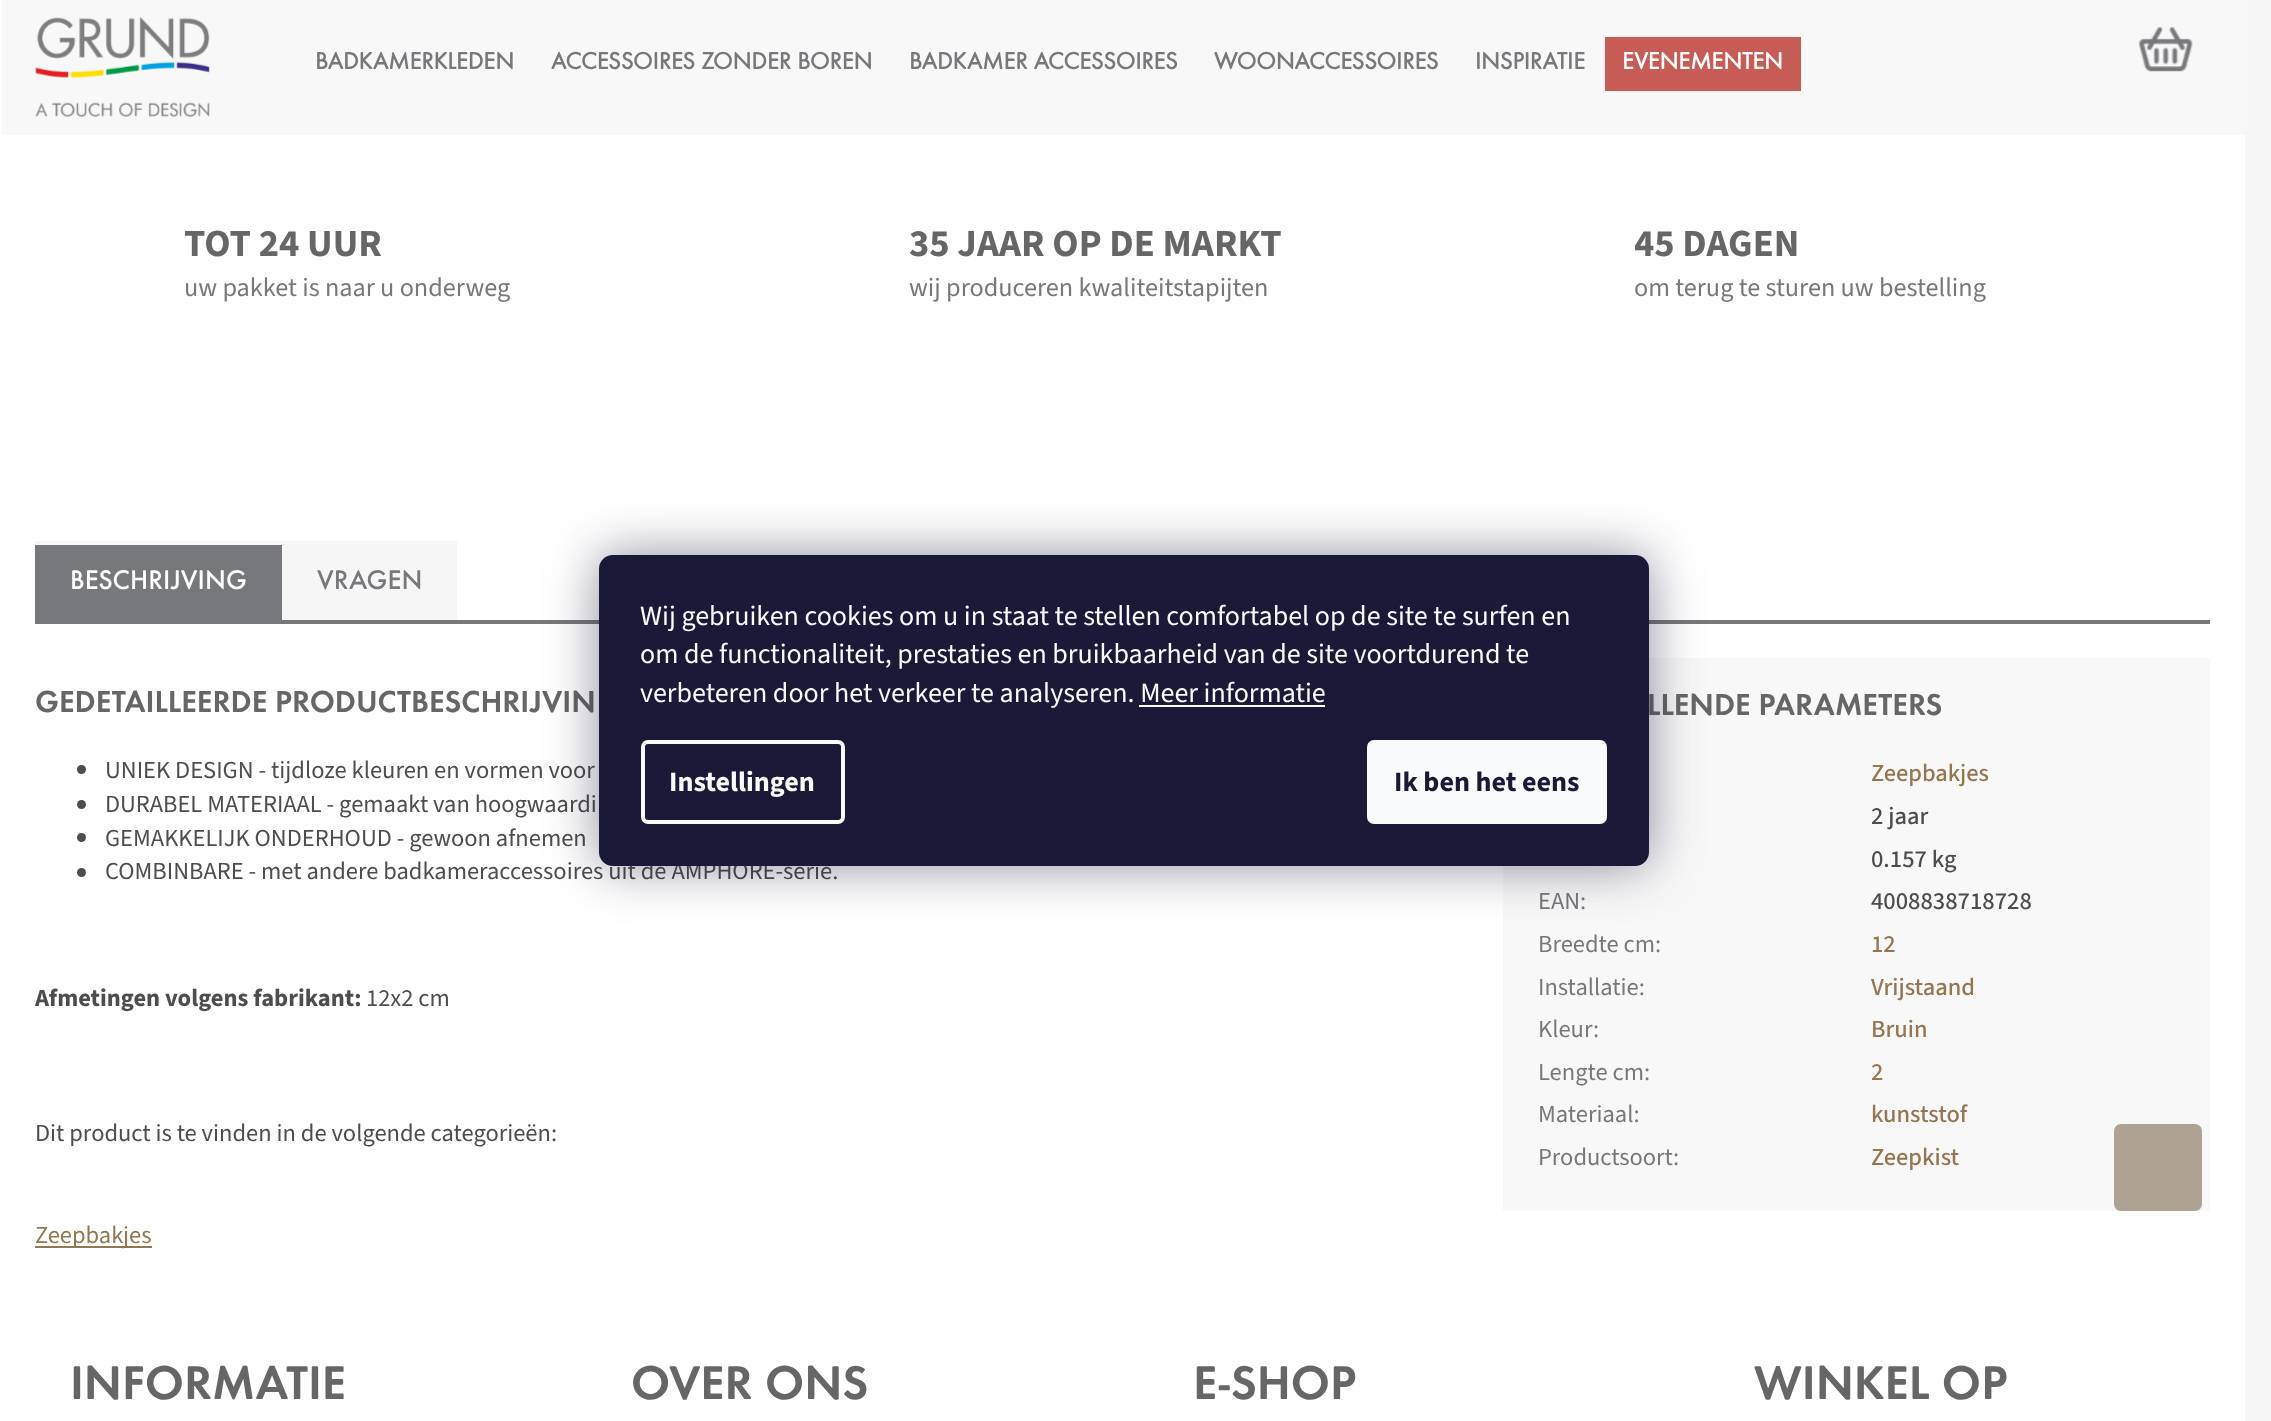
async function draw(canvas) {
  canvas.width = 2271;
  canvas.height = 1421;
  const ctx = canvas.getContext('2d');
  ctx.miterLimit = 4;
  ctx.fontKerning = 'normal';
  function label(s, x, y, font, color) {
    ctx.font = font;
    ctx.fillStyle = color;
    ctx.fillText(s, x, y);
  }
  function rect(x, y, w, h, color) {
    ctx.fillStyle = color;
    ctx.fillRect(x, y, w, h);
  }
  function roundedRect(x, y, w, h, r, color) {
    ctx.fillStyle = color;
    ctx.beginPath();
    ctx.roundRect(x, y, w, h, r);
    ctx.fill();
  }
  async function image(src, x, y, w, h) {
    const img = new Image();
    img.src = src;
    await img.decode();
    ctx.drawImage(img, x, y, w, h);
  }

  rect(0, 0, 2271, 1421, '#f7f7f7');
  rect(0, 0, 2245, 1421, '#fff');
  rect(2, 0, 2243, 135, '#f9f8f8');
  await image('assets/img1.png', 35, 17, 175, 100);
  label('BADKAMERKLEDEN', 315, 69, 'bold 24.5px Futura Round', '#77787b');
  label('ACCESSOIRES ZONDER BOREN', 551, 69, 'bold 24.5px Futura Round', '#77787b');
  label('BADKAMER ACCESSOIRES', 909, 69, 'bold 24.5px Futura Round', '#77787b');
  label('WOONACCESSOIRES', 1214, 69, 'bold 24.5px Futura Round', '#77787b');
  label('INSPIRATIE', 1475, 69, 'bold 24.5px Futura Round', '#77787b');
  rect(1605, 37, 196, 54, '#c75c56');
  label('EVENEMENTEN', 1622, 69, 'bold 24.5px Futura Round', '#fff');
  await image('assets/img2.png', 2138, 27, 55, 45);
  label('TOT 24 UUR', 184, 256, 'bold 38.5px "Source Sans 3"', '#666');
  label('uw pakket is naar u onderweg', 184, 296, '26.25px "Source Sans 3"', '#77787b');
  label('35 JAAR OP DE MARKT', 909, 256, 'bold 38.5px "Source Sans 3"', '#666');
  label('wij produceren kwaliteitstapijten', 909, 296, '26.25px "Source Sans 3"', '#77787b');
  ctx.save();
  ctx.beginPath();
  ctx.rect(1635, 217, 369, 123);
  ctx.clip();
  label('45 DAGEN', 1634, 256, 'bold 38.5px "Source Sans 3"', '#666');
  ctx.restore();
  label('om terug te sturen uw bestelling', 1634, 296, '26.25px "Source Sans 3"', '#77787b');
  rect(35, 620, 2175, 4, '#77787b');
  rect(35, 545, 247, 75, '#77787b');
  rect(35, 541, 247, 4, '#f6f6f6');
  label('BESCHRIJVING', 70, 589, '500 28px Futura Round', '#fff');
  rect(282, 541, 175, 79, '#f6f6f6');
  label('VRAGEN', 317, 589, '500 28px Futura Round', '#77787b');
  label('GEDETAILLEERDE PRODUCTBESCHRIJVIN', 35, 712, '600 31.5px Futura Round', '#666');
  ctx.fillStyle = '#4d4d4d';
  ctx.beginPath();
  ctx.arc(81.5, 769.5, 4.5, 0, 2 * Math.PI);
  ctx.fill();
  label('UNIEK DESIGN - tijdloze kleuren en vormen voor', 105, 778, '24.5px "Source Sans 3"', '#4d4d4d');
  ctx.beginPath();
  ctx.arc(81.5, 804.5, 4.5, 0, 2 * Math.PI);
  ctx.fill();
  label('DURABEL MATERIAAL - gemaakt van hoogwaardi', 105, 812, '24.5px "Source Sans 3"', '#4d4d4d');
  ctx.beginPath();
  ctx.arc(81.5, 837.5, 4.5, 0, 2 * Math.PI);
  ctx.fill();
  label('GEMAKKELIJK ONDERHOUD - gewoon afnemen', 105, 846, '24.5px "Source Sans 3"', '#4d4d4d');
  ctx.beginPath();
  ctx.arc(81.5, 872.5, 4.5, 0, 2 * Math.PI);
  ctx.fill();
  label('COMBINBARE - met andere badkameraccessoires uit de AMPHORE-serie.', 105, 879, '24.5px "Source Sans 3"', '#4d4d4d');
  label('Afmetingen volgens fabrikant:', 35, 1006, 'bold 24.5px "Source Sans 3"', '#4d4d4d');
  label('12x2 cm', 366, 1006, '24.5px "Source Sans 3"', '#4d4d4d');
  label('Dit product is te vinden in de volgende categorieën:', 35, 1141, '24.5px "Source Sans 3"', '#4d4d4d');
  rect(35, 1246, 117, 2, '#947650');
  label('Zeepbakjes', 35, 1243, '24.5px "Source Sans 3"', '#947650');
  rect(1503, 658, 707, 553, '#f9f8f8');
  label('LLENDE PARAMETERS', 1647, 715, '600 31.5px Futura Round', '#666');
  label('Zeepbakjes', 1871, 781, '500 24.5px "Source Sans 3"', '#947650');
  label('2 jaar', 1871, 824, '500 24.5px "Source Sans 3"', '#4d4d4d');
  label('0.157 kg', 1871, 867, '500 24.5px "Source Sans 3"', '#4d4d4d');
  label('EAN:', 1538, 909, '24.5px "Source Sans 3"', '#77787b');
  label('4008838718728', 1871, 909, '500 24.5px "Source Sans 3"', '#4d4d4d');
  label('Breedte cm:', 1538, 952, '24.5px "Source Sans 3"', '#77787b');
  label('12', 1871, 952, '500 24.5px "Source Sans 3"', '#947650');
  label('Installatie:', 1538, 995, '24.5px "Source Sans 3"', '#77787b');
  label('Vrijstaand', 1871, 995, '500 24.5px "Source Sans 3"', '#947650');
  label('Kleur', 1538, 1037, '24.5px "Source Sans 3"', '#77787b');
  label(':', 1593, 1037, '24.5px "Source Sans 3"', '#77787b');
  label('Bruin', 1871, 1037, '500 24.5px "Source Sans 3"', '#947650');
  label('Lengte cm:', 1538, 1080, '24.5px "Source Sans 3"', '#77787b');
  label('2', 1871, 1080, '500 24.5px "Source Sans 3"', '#947650');
  label('Materiaal:', 1538, 1122, '24.5px "Source Sans 3"', '#77787b');
  label('kunststof', 1871, 1122, '500 24.5px "Source Sans 3"', '#947650');
  label('Productsoort', 1538, 1165, '24.5px "Source Sans 3"', '#77787b');
  label(':', 1673, 1165, '24.5px "Source Sans 3"', '#77787b');
  label('Zeepkist', 1871, 1165, '500 24.5px "Source Sans 3"', '#947650');
  label('INFORMATIE', 70, 1399, '600 49px Futura Round', '#666');
  label('OVER ONS', 631, 1399, '600 49px Futura Round', '#666');
  label('E-SHOP', 1193, 1399, '600 49px Futura Round', '#666');
  label('WINKEL OP', 1754, 1399, '600 49px Futura Round', '#666');
  ctx.fillStyle = '#1b193980';
  ctx.filter = 'blur(26px)';
  ctx.beginPath();
  ctx.roundRect(599, 555, 1050, 311, 14);
  ctx.fill();
  ctx.filter = 'none';
  roundedRect(599, 555, 1050, 311, 14, '#1a1937');
  label('Wij gebruiken cookies om u in staat te stellen comfortabel op de site te surfen en', 640, 625, '28px "Source Sans 3"', '#f8fafb');
  label('om de functionaliteit, prestaties en bruikbaarheid van de site voortdurend te', 640, 663, '28px "Source Sans 3"', '#f8fafb');
  label('verbeteren door het verkeer te analyseren. Meer informatie', 640, 702, '28px "Source Sans 3"', '#f8fafb');
  rect(1139, 705, 186, 2, '#f8fafb');
  ctx.beginPath();
  ctx.roundRect(643, 742, 200, 80, 5);
  ctx.strokeStyle = '#f8fafb';
  ctx.lineWidth = 4;
  ctx.stroke();
  label('Instellingen', 669, 791, 'bold 28px "Source Sans 3"', '#f8fafb');
  roundedRect(1367, 740, 240, 84, 7, '#f8fafb');
  label('Ik ben het eens', 1394, 791, 'bold 28px "Source Sans 3"', '#1a1937');
  roundedRect(2114, 1124, 88, 87, 7, '#aea292');
}

draw(document.querySelector('canvas'));
